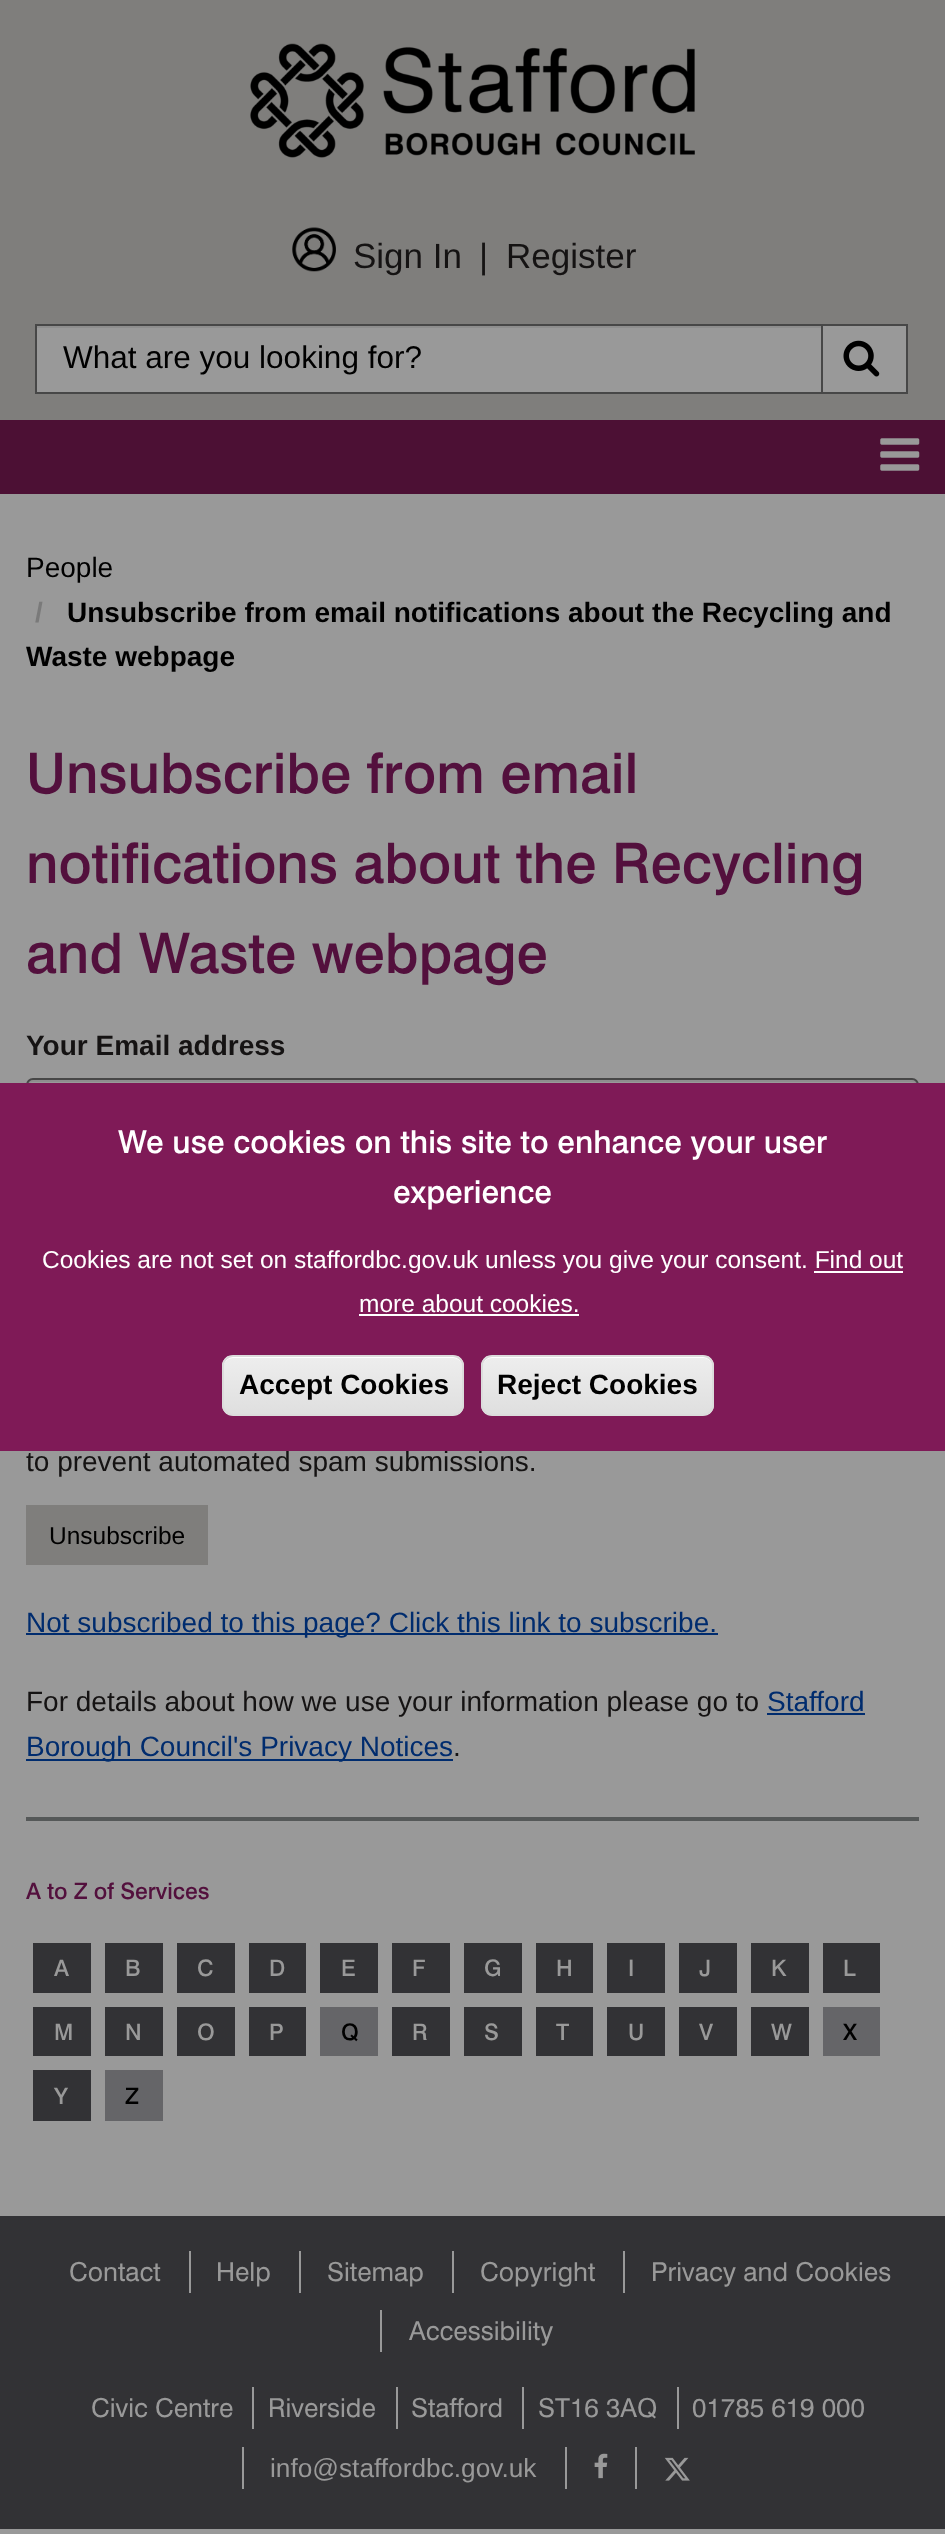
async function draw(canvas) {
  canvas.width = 945;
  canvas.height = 2534;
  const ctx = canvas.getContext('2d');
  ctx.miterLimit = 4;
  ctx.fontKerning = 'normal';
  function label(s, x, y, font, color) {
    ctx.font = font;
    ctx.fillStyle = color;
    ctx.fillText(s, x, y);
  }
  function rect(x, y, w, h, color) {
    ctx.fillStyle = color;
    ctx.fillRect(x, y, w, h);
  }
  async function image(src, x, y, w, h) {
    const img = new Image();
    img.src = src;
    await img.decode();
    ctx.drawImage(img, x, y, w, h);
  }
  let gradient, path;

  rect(0, 0, 945, 2534, '#999');
  rect(0, 0, 945, 420, '#7f7e7c');
  await image('assets/img1.png', 250, 43, 445, 115);
  await image('assets/img2.png', 292, 227, 44, 45);
  label('Sign In', 353, 268, '35px Liberation Sans', '#151313');
  label('|', 479, 268, '35px Liberation Sans', '#151313');
  label('Register', 506, 268, '35px Liberation Sans', '#151313');
  rect(37, 328, 784, 64, '#999');
  rect(37, 326, 784, 2, '#8e8e8e');
  ctx.strokeStyle = '#474747';
  ctx.lineWidth = 2;
  ctx.strokeRect(36, 325, 786, 68);
  label('What are you looking for?', 63, 368, '31.5px Liberation Sans', '#000');
  ctx.fillStyle = '#999';
  ctx.beginPath();
  ctx.rect(822, 325, 85, 68);
  ctx.fill();
  ctx.stroke();
  await image('assets/img3.png', 843, 340, 37, 37);
  rect(0, 420, 945, 74, '#4c1034');
  await image('assets/img4.png', 880, 438, 40, 33);
  label('People', 26, 577, '28px Liberation Sans', '#000');
  label('/', 35, 622, 'bold 28px Liberation Sans', '#7a7a7a');
  label('Unsubscribe from email notifications about the Recycling and', 67, 622, 'bold 28px Liberation Sans', '#000');
  label('Waste webpage', 26, 666, 'bold 28px Liberation Sans', '#000');
  label('Unsubscribe from email', 26, 793, '500 56px "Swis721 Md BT"', '#53103d');
  label('notifications about the Recycling', 26, 883, '500 56px "Swis721 Md BT"', '#53103d');
  label('and Waste webpage', 26, 973, '500 56px "Swis721 Md BT"', '#53103d');
  label('Your Email address', 26, 1055, 'bold 28px Liberation Sans', '#151313');
  ctx.fillStyle = '#8e8e8e';
  path = new Path2D('M33 1082H912C915 1082 917 1084 917 1087V1085C917 1082 915 1080 912 1080H33C30 1080 28 1082 28 1085V1087C28 1084 30 1082 33 1082Z');
  ctx.fill(path);
  ctx.beginPath();
  ctx.roundRect(27, 1079, 891, 58, 6);
  ctx.stroke();
  label('to prevent automated spam submissions.', 26, 1471, '28px Liberation Sans', '#151313');
  rect(26, 1505, 182, 60, '#7f7e7c');
  label('Unsubscribe', 49, 1544, '24.5px Liberation Sans', '#000');
  rect(26, 1633, 692, 2, '#002c6e');
  label('Not subscribed to this page? Click this link to subscribe.', 26, 1632, '28px Liberation Sans', '#002c6e');
  label('For details about how we use your information please go to', 26, 1711, '28px Liberation Sans', '#151313');
  label('Stafford', 767, 1711, '28px Liberation Sans', '#002c6e');
  rect(767, 1713, 98, 2, '#002c6e');
  rect(26, 1759, 427, 2, '#002c6e');
  label('Borough Council\'s Privacy Notices', 26, 1756, '28px Liberation Sans', '#002c6e');
  label('.', 453, 1756, '28px Liberation Sans', '#151313');
  rect(26, 1817, 893, 4, '#555858');
  label('A to Z of Services', 26, 1899, '500 22.75px "Swis721 Md BT"', '#53103d');
  rect(33, 1943, 58, 50, '#323235');
  label('A', 54, 1976, '500 22.75px "Swis721 Md BT"', '#999');
  rect(105, 1943, 58, 50, '#323235');
  label('B', 125, 1976, '500 22.75px "Swis721 Md BT"', '#999');
  rect(177, 1943, 58, 50, '#323235');
  label('C', 197, 1976, '500 22.75px "Swis721 Md BT"', '#999');
  rect(249, 1943, 57, 50, '#323235');
  label('D', 269, 1976, '500 22.75px "Swis721 Md BT"', '#999');
  rect(320, 1943, 58, 50, '#323235');
  label('E', 341, 1976, '500 22.75px "Swis721 Md BT"', '#999');
  rect(392, 1943, 58, 50, '#323235');
  label('F', 412, 1976, '500 22.75px "Swis721 Md BT"', '#999');
  rect(464, 1943, 58, 50, '#323235');
  label('G', 484, 1976, '500 22.75px "Swis721 Md BT"', '#999');
  rect(536, 1943, 57, 50, '#323235');
  label('H', 556, 1976, '500 22.75px "Swis721 Md BT"', '#999');
  rect(607, 1943, 58, 50, '#323235');
  label('I', 628, 1976, '500 22.75px "Swis721 Md BT"', '#999');
  rect(679, 1943, 58, 50, '#323235');
  label('J', 699, 1976, '500 22.75px "Swis721 Md BT"', '#999');
  rect(751, 1943, 58, 50, '#323235');
  label('K', 771, 1976, '500 22.75px "Swis721 Md BT"', '#999');
  rect(823, 1943, 57, 50, '#323235');
  label('L', 843, 1976, '500 22.75px "Swis721 Md BT"', '#999');
  rect(33, 2007, 58, 49, '#323235');
  label('M', 54, 2040, '500 22.75px "Swis721 Md BT"', '#999');
  rect(105, 2007, 58, 49, '#323235');
  label('N', 125, 2040, '500 22.75px "Swis721 Md BT"', '#999');
  rect(177, 2007, 58, 49, '#323235');
  label('O', 197, 2040, '500 22.75px "Swis721 Md BT"', '#999');
  rect(249, 2007, 57, 49, '#323235');
  label('P', 269, 2040, '500 22.75px "Swis721 Md BT"', '#999');
  rect(320, 2007, 58, 49, '#656568');
  label('Q', 341, 2040, '500 22.75px "Swis721 Md BT"', '#000');
  rect(392, 2007, 58, 49, '#323235');
  label('R', 412, 2040, '500 22.75px "Swis721 Md BT"', '#999');
  rect(464, 2007, 58, 49, '#323235');
  label('S', 484, 2040, '500 22.75px "Swis721 Md BT"', '#999');
  rect(536, 2007, 57, 49, '#323235');
  label('T', 556, 2040, '500 22.75px "Swis721 Md BT"', '#999');
  rect(607, 2007, 58, 49, '#323235');
  label('U', 628, 2040, '500 22.75px "Swis721 Md BT"', '#999');
  rect(679, 2007, 58, 49, '#323235');
  label('V', 699, 2040, '500 22.75px "Swis721 Md BT"', '#999');
  rect(751, 2007, 58, 49, '#323235');
  label('W', 771, 2040, '500 22.75px "Swis721 Md BT"', '#999');
  rect(823, 2007, 57, 49, '#656568');
  label('X', 843, 2040, '500 22.75px "Swis721 Md BT"', '#000');
  rect(33, 2070, 58, 51, '#323235');
  label('Y', 54, 2104, '500 22.75px "Swis721 Md BT"', '#999');
  rect(105, 2070, 58, 51, '#656568');
  label('Z', 125, 2104, '500 22.75px "Swis721 Md BT"', '#000');
  rect(0, 1083, 945, 368, '#7f1a57');
  label('We use cookies on this site to enhance your user', 118, 1153, '500 31.5px "Swis721 Md BT"', '#fff');
  label('experience', 393, 1203, '500 31.5px "Swis721 Md BT"', '#fff');
  label('Cookies are not set on staffordbc.gov.uk unless you give your consent. Find out', 42, 1268, '24.5px Liberation Sans', '#fff');
  rect(814, 1271, 89, 2, '#fff');
  label('more about cookies.', 359, 1312, '24.5px Liberation Sans', '#fff');
  rect(359, 1314, 220, 2, '#fff');
  ctx.save();
  ctx.beginPath();
  ctx.roundRect(222, 1355, 242, 61, 11);
  ctx.clip();
  gradient = ctx.createLinearGradient(343, 1356, 343, 1414);
  gradient.addColorStop(0.05, '#ededed');
  gradient.addColorStop(1, '#dfdfdf');
  ctx.fillStyle = gradient;
  ctx.fillRect(222, 1356, 242, 58);
  ctx.restore();
  path = new Path2D('M233 1358H453C458 1358 462 1362 462 1366V1365C462 1360 458 1356 453 1356H233C228 1356 224 1360 224 1365V1366C224 1362 228 1358 233 1358Z');
  ctx.fill(path);
  ctx.beginPath();
  ctx.roundRect(223, 1356, 240, 59, 10);
  ctx.strokeStyle = '#dcdcdc';
  ctx.stroke();
  label('Accept Cookies', 239, 1394, 'bold 28px Liberation Sans', '#000');
  ctx.save();
  ctx.beginPath();
  ctx.roundRect(481, 1355, 233, 61, 11);
  ctx.clip();
  gradient = ctx.createLinearGradient(598, 1356, 598, 1414);
  gradient.addColorStop(0.05, '#ededed');
  gradient.addColorStop(1, '#dfdfdf');
  ctx.fillStyle = gradient;
  ctx.fillRect(481, 1356, 233, 58);
  ctx.restore();
  ctx.fillStyle = '#fff';
  path = new Path2D('M492 1358H704C708 1358 712 1362 712 1366V1365C712 1360 708 1356 703 1356H492C487 1356 483 1360 483 1365V1366C483 1362 487 1358 492 1358Z');
  ctx.fill(path);
  ctx.beginPath();
  ctx.roundRect(482, 1356, 231, 59, 10);
  ctx.stroke();
  label('Reject Cookies', 497, 1394, 'bold 28px Liberation Sans', '#000');
  rect(0, 2216, 945, 313, '#323235');
  label('Contact', 69, 2281, '26.25px "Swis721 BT"', '#999');
  rect(189, 2251, 2, 42, '#999');
  label('Help', 216, 2281, '26.25px "Swis721 BT"', '#999');
  rect(299, 2251, 2, 42, '#999');
  label('Sitemap', 327, 2281, '26.25px "Swis721 BT"', '#999');
  rect(452, 2251, 2, 42, '#999');
  label('Copyright', 480, 2281, '26.25px "Swis721 BT"', '#999');
  rect(623, 2251, 2, 42, '#999');
  label('Privacy and Cookies', 651, 2281, '26.25px "Swis721 BT"', '#999');
  rect(380, 2310, 2, 42, '#999');
  label('Accessibility', 409, 2340, '26.25px "Swis721 BT"', '#999');
  label('Civic Centre', 91, 2417, '26.25px "Swis721 BT"', '#999');
  rect(252, 2387, 2, 42, '#999');
  label('Riverside', 268, 2417, '26.25px "Swis721 BT"', '#999');
  rect(396, 2387, 2, 42, '#999');
  label('Stafford', 411, 2417, '26.25px "Swis721 BT"', '#999');
  rect(522, 2387, 2, 42, '#999');
  label('ST16 3AQ', 538, 2417, '26.25px "Swis721 BT"', '#999');
  rect(677, 2387, 2, 42, '#999');
  label('01785 619 000', 692, 2417, '26.25px "Swis721 BT"', '#999');
  rect(242, 2447, 2, 42, '#999');
  label('info@staffordbc.gov.uk', 270, 2477, '26.25px Liberation Sans', '#999');
  rect(565, 2447, 2, 42, '#999');
  await image('assets/img5.png', 594, 2453, 14, 26);
  rect(635, 2447, 2, 42, '#999');
  await image('assets/img6.png', 664, 2457, 26, 24);
}

draw(document.querySelector('canvas'));
